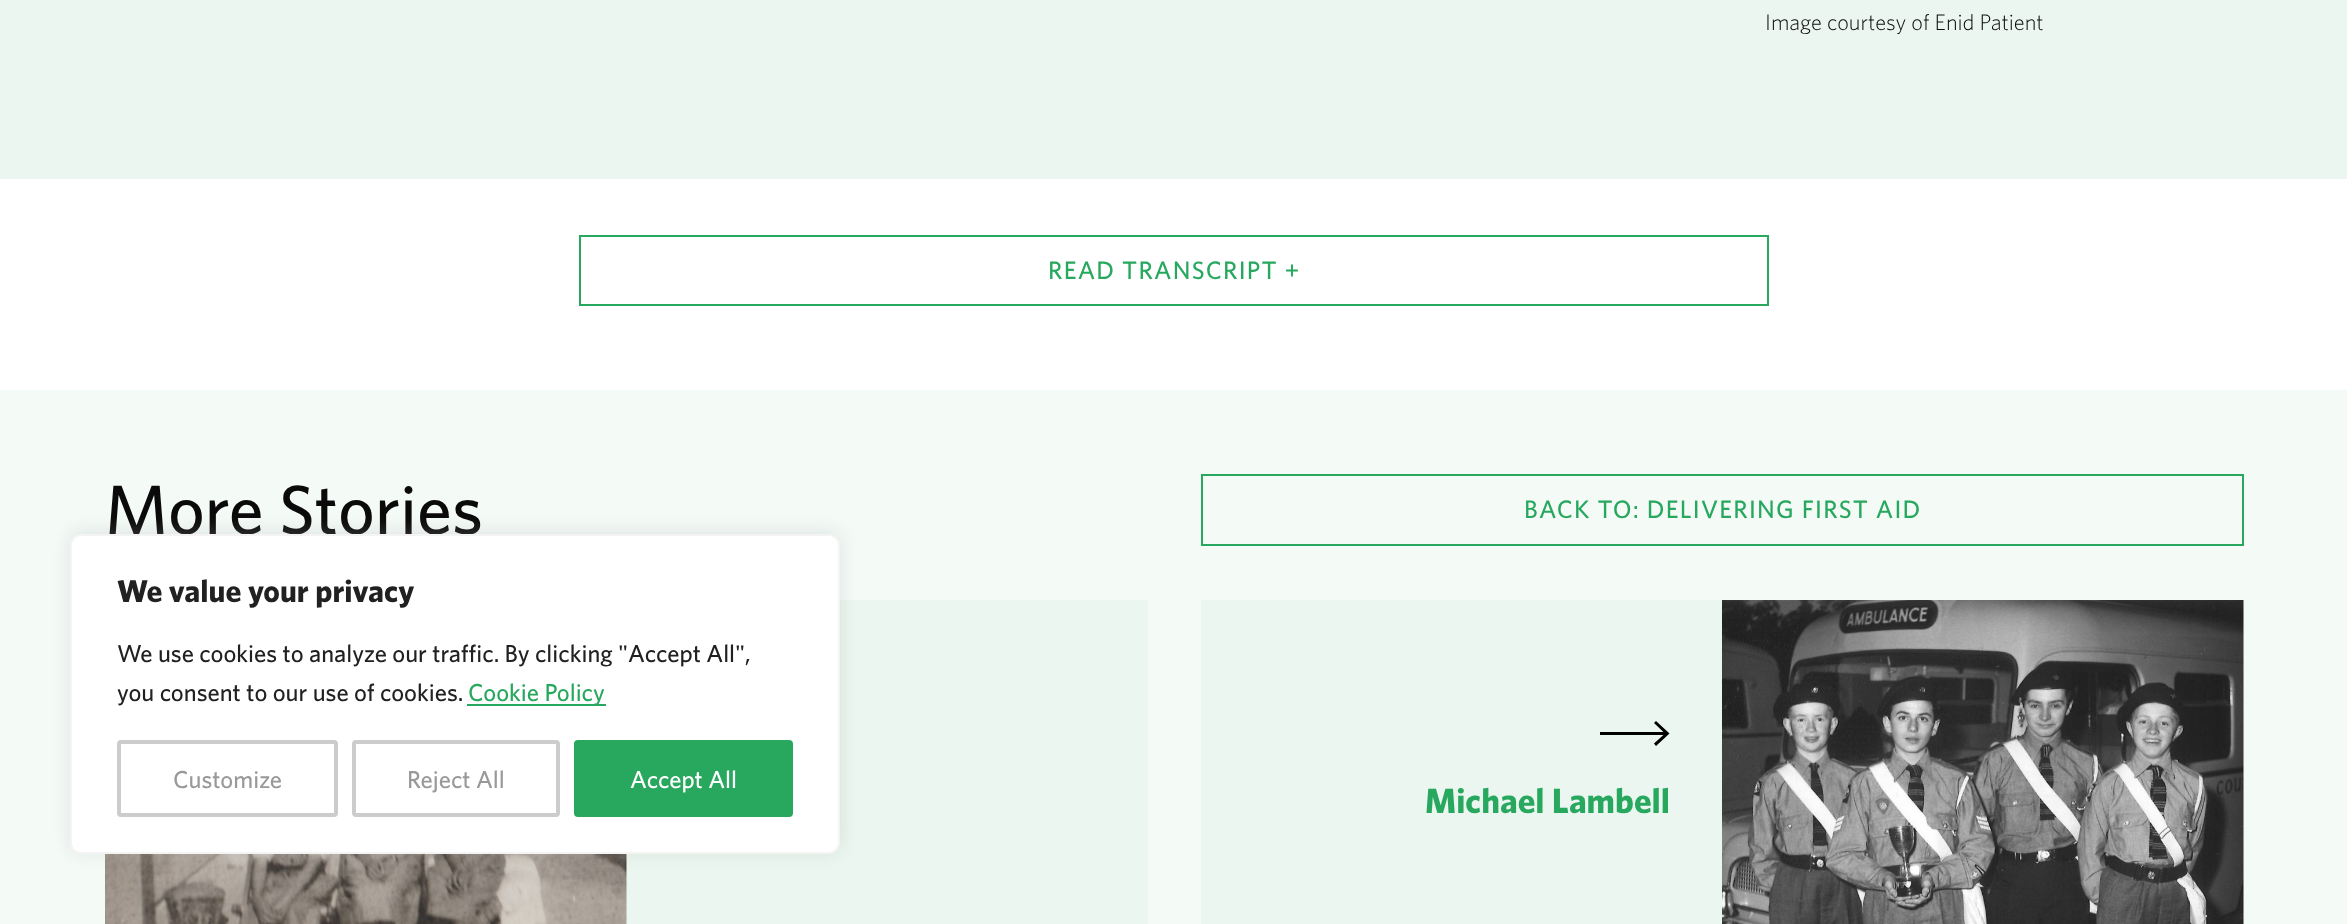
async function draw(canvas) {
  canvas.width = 2347;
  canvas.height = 924;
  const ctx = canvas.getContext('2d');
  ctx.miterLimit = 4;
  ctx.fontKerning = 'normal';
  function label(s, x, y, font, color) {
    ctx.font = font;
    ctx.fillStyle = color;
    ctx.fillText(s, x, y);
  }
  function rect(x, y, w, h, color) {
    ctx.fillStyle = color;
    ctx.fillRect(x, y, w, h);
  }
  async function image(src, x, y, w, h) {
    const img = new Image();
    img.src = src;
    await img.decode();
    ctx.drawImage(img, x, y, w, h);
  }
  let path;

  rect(0, 0, 2347, 924, '#fff');
  rect(0, 0, 2347, 179, '#eaf6ef');
  label('Image courtesy of Enid Patient', 1765, 30, '300 22.4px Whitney', '#0a0a0a');
  ctx.strokeStyle = '#28a85f';
  ctx.lineWidth = 2;
  ctx.strokeRect(580, 236, 1188, 69);
  ctx.letterSpacing = '1.25px';
  label('READ TRANSCRIPT +', 1048, 279, '500 25.25px Whitney', '#28a85f');
  rect(0, 390, 2347, 534, '#f4fbf7');
  ctx.letterSpacing = '0px';
  label('More Stories', 105, 534, '500 70px Whitney', '#0a0a0a');
  ctx.strokeRect(1202, 475, 1041, 70);
  ctx.letterSpacing = '1.25px';
  label('BACK TO: DELIVERING FIRST AID', 1524, 518, '500 25.25px Whitney', '#28a85f');
  rect(626, 600, 522, 324, '#eaf6ef');
  await image('assets/img1.png', 105, 854, 522, 70);
  rect(1201, 600, 1043, 324, '#eaf6ef');
  rect(1600, 732, 66, 3, '#000');
  path = new Path2D('M1656 746L1654 743.5L1665 733.5L1654 723L1656 721L1669.5 733.5Z');
  ctx.fill(path);
  ctx.letterSpacing = '0px';
  label('Michael Lambell', 1425, 813, 'bold 35px Whitney', '#28a85f');
  await image('assets/img2.png', 1722, 600, 522, 324);
  ctx.fillStyle = '#acabab4d';
  ctx.filter = 'blur(9px)';
  ctx.beginPath();
  ctx.roundRect(70, 532, 770, 320, 11);
  ctx.fill();
  ctx.filter = 'none';
  ctx.fillStyle = '#fff';
  ctx.beginPath();
  ctx.roundRect(71, 535, 768, 318, 10);
  ctx.fill();
  ctx.strokeStyle = '#f4f4f4';
  ctx.stroke();
  label('We value your privacy', 117, 602, 'bold 31.5px Whitney', '#212121');
  label('We use cookies to analyze our traffic. By clicking "Accept All",', 117, 662, '500 24.5px Whitney', '#212121');
  label('you consent to our use of cookies.', 117, 701, '500 24.5px Whitney', '#212121');
  rect(467, 704, 139, 2, '#28a85f');
  label('Cookie Policy', 468, 701, '500 24.5px Whitney', '#28a85f');
  ctx.beginPath();
  ctx.roundRect(119, 742, 217, 73, 2);
  ctx.strokeStyle = '#ccc';
  ctx.lineWidth = 4;
  ctx.stroke();
  label('Customize', 173, 788, '500 24.5px Whitney', '#999');
  ctx.beginPath();
  ctx.roundRect(354, 742, 204, 73, 2);
  ctx.stroke();
  label('Reject All', 407, 788, '500 24.5px Whitney', '#999');
  ctx.fillStyle = '#28a85f';
  ctx.beginPath();
  ctx.roundRect(576, 742, 215, 73, 2);
  ctx.fill();
  ctx.strokeStyle = '#28a85f';
  ctx.stroke();
  label('Accept All', 630, 788, '500 24.5px Whitney', '#fff');
}

draw(document.querySelector('canvas'));
